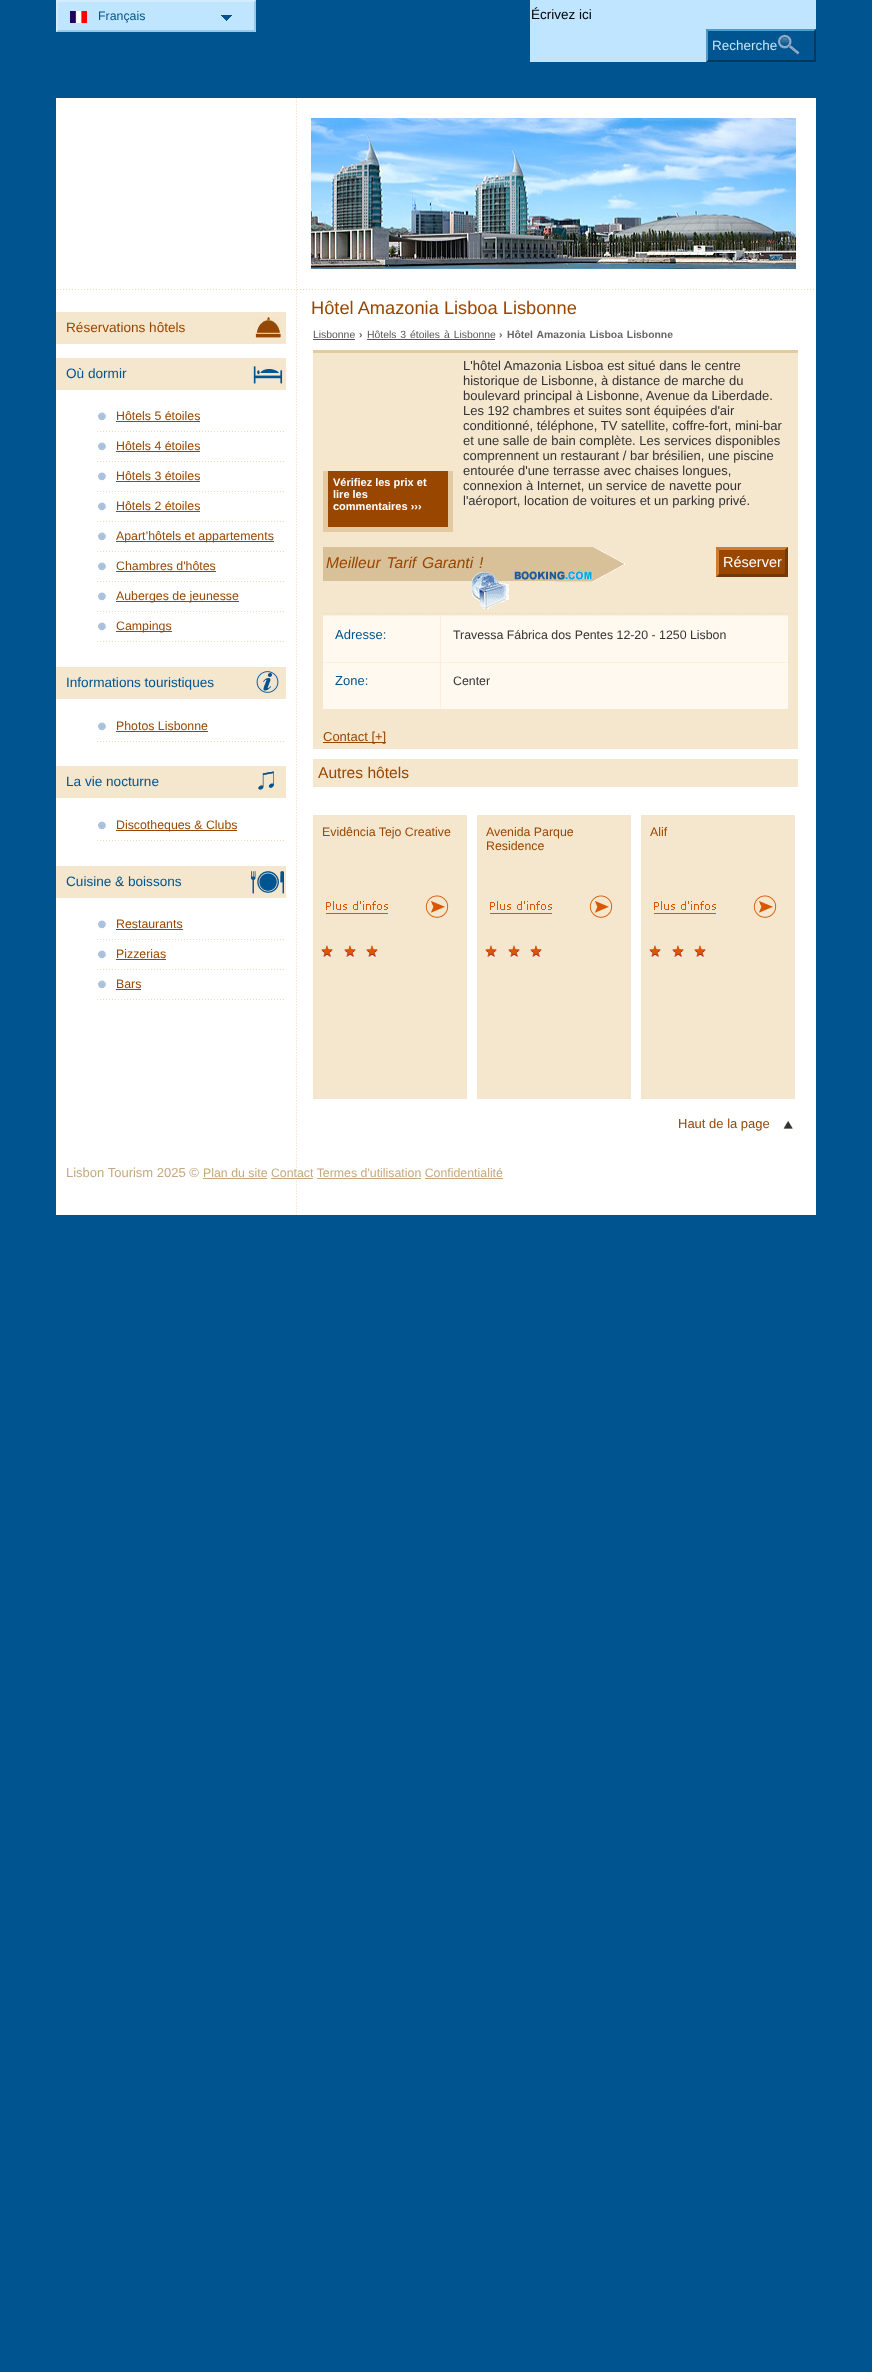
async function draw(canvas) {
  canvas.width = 872;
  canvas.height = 2372;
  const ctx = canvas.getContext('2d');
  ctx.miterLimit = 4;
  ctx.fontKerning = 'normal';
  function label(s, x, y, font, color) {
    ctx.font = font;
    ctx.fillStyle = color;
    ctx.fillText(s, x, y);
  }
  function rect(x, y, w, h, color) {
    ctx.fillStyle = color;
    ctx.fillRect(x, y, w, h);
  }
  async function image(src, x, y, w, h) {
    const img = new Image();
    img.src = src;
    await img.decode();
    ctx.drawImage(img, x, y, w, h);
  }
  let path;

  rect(0, 0, 872, 2372, '#00548f');
  rect(56, 0, 200, 32, '#bfe5ff');
  await image('assets/img1.png', 221, 15, 11, 6);
  await image('assets/img2.png', 70, 11, 17, 12);
  ctx.fillStyle = '#d3edfe';
  path = new Path2D('M56 0H256L254 2H58Z');
  ctx.fill(path);
  ctx.fillStyle = '#97c8ea';
  path = new Path2D('M256 0V32L254 30V2Z');
  ctx.fill(path);
  path = new Path2D('M256 32H56L58 30H254Z');
  ctx.fill(path);
  ctx.fillStyle = '#d3edfe';
  path = new Path2D('M56 32V0L58 2V30Z');
  ctx.fill(path);
  label('Français', 98, 20, '12.35px Liberation Sans', '#00548f');
  rect(530, 0, 286, 62, '#bfe5ff');
  label('Écrivez ici', 531, 19, '13.5px Liberation Sans', '#000');
  rect(706, 29, 110, 33, '#00548f');
  await image('assets/img3.png', 777, 34, 23, 21);
  ctx.fillStyle = '#4d9bcf';
  path = new Path2D('M706 29H816L814 31H708Z');
  ctx.fill(path);
  ctx.fillStyle = '#00395f';
  path = new Path2D('M816 29V62L814 60V31Z');
  ctx.fill(path);
  path = new Path2D('M816 62H706L708 60H814Z');
  ctx.fill(path);
  ctx.fillStyle = '#4d9bcf';
  path = new Path2D('M706 62V29L708 31V60Z');
  ctx.fill(path);
  label('Recherche', 712, 50, '13.5px Liberation Sans', '#bfe5ff');
  rect(56, 98, 760, 1117, '#fff');
  await image('assets/img4.png', 296, 98, 1, 1117);
  await image('assets/img5.png', 57, 289, 757, 1);
  await image('assets/img6.png', 311, 118, 485, 151);
  label('Hôtel Amazonia Lisboa Lisbonne', 311, 314, '18.25px Liberation Sans', '#994700');
  rect(56, 312, 230, 32, '#f5e6ce');
  await image('assets/img7.png', 255, 317, 26, 21);
  label('Réservations hôtels', 66, 332, '13.6px Liberation Sans', '#994700');
  rect(56, 358, 230, 32, '#f5e6ce');
  await image('assets/img8.png', 252, 366, 31, 18);
  label('Où dormir', 66, 378, '13.6px Liberation Sans', '#00548f');
  await image('assets/img9.png', 97, 431, 187, 1);
  await image('assets/img10.png', 98, 412, 8, 9);
  label('Hôtels 5 étoiles', 116, 420, '12.35px Liberation Sans', '#994700');
  rect(116, 421, 84, 1, '#994700');
  await image('assets/img9.png', 97, 461, 187, 1);
  await image('assets/img10.png', 98, 442, 8, 9);
  label('Hôtels 4 étoiles', 116, 450, '12.35px Liberation Sans', '#994700');
  rect(116, 451, 84, 1, '#994700');
  await image('assets/img9.png', 97, 491, 187, 1);
  await image('assets/img10.png', 98, 472, 8, 9);
  label('Hôtels 3 étoiles', 116, 480, '12.35px Liberation Sans', '#994700');
  rect(116, 481, 84, 1, '#994700');
  await image('assets/img9.png', 97, 521, 187, 1);
  await image('assets/img10.png', 98, 502, 8, 9);
  label('Hôtels 2 étoiles', 116, 510, '12.35px Liberation Sans', '#994700');
  rect(116, 511, 84, 1, '#994700');
  await image('assets/img9.png', 97, 551, 187, 1);
  await image('assets/img10.png', 98, 532, 8, 9);
  rect(116, 541, 158, 1, '#994700');
  label('Apart’hôtels et appartements', 116, 540, '12.35px Liberation Sans', '#994700');
  await image('assets/img9.png', 97, 581, 187, 1);
  await image('assets/img10.png', 98, 562, 8, 9);
  label('Chambres d\'hôtes', 116, 570, '12.35px Liberation Sans', '#994700');
  rect(116, 571, 100, 1, '#994700');
  await image('assets/img9.png', 97, 611, 187, 1);
  await image('assets/img10.png', 98, 592, 8, 9);
  rect(116, 601, 123, 1, '#994700');
  label('Auberges de jeunesse', 116, 600, '12.35px Liberation Sans', '#994700');
  await image('assets/img9.png', 97, 641, 187, 1);
  await image('assets/img10.png', 98, 622, 8, 9);
  rect(116, 631, 56, 1, '#994700');
  label('Campings', 116, 630, '12.35px Liberation Sans', '#994700');
  rect(56, 667, 230, 32, '#f5e6ce');
  await image('assets/img11.png', 256, 671, 23, 22);
  label('Informations touristiques', 66, 687, '13.6px Liberation Sans', '#00548f');
  await image('assets/img9.png', 97, 741, 187, 1);
  await image('assets/img10.png', 98, 722, 8, 9);
  label('Photos Lisbonne', 116, 730, '12.35px Liberation Sans', '#994700');
  rect(116, 731, 92, 1, '#994700');
  rect(56, 766, 230, 32, '#f5e6ce');
  await image('assets/img12.png', 258, 771, 17, 19);
  label('La vie nocturne', 66, 786, '13.6px Liberation Sans', '#00548f');
  await image('assets/img9.png', 97, 840, 187, 1);
  await image('assets/img10.png', 98, 821, 8, 9);
  rect(116, 830, 121, 1, '#994700');
  label('Discotheques & Clubs', 116, 829, '12.35px Liberation Sans', '#994700');
  rect(56, 866, 230, 32, '#f5e6ce');
  await image('assets/img13.png', 251, 871, 33, 23);
  label('Cuisine & boissons', 66, 886, '13.6px Liberation Sans', '#00548f');
  await image('assets/img9.png', 97, 939, 187, 1);
  await image('assets/img10.png', 98, 920, 8, 9);
  label('Restaurants', 116, 928, '12.35px Liberation Sans', '#994700');
  rect(116, 929, 67, 1, '#994700');
  await image('assets/img9.png', 97, 969, 187, 1);
  await image('assets/img10.png', 98, 950, 8, 9);
  label('Pizzerias', 116, 958, '12.35px Liberation Sans', '#994700');
  rect(116, 959, 50, 1, '#994700');
  await image('assets/img9.png', 97, 999, 187, 1);
  await image('assets/img10.png', 98, 980, 8, 9);
  label('Bars', 116, 988, '12.35px Liberation Sans', '#994700');
  rect(116, 989, 25, 1, '#994700');
  label('Lisbonne', 313, 338, '10.4px Liberation Sans', '#555');
  rect(313, 339, 42, 1, '#555');
  label('›', 359, 338, 'bold 10.4px Liberation Sans', '#666');
  ctx.wordSpacing = '1px';
  label('Hôtels 3 étoiles', 367, 338, '10.4px Liberation Sans', '#555');
  rect(367, 339, 128, 1, '#555');
  label('à Lisbonne', 444, 338, '10.4px Liberation Sans', '#555');
  ctx.wordSpacing = '0px';
  label('›', 499, 338, 'bold 10.4px Liberation Sans', '#666');
  ctx.wordSpacing = '1px';
  label('Hôtel Amazonia Lisboa Lisbonne', 507, 338, 'bold 10.4px Liberation Sans', '#666');
  rect(313, 353, 485, 396, '#f5e6ce');
  rect(313, 350, 485, 3, '#e4caa3');
  ctx.wordSpacing = '0px';
  label('L\'hôtel Amazonia Lisboa est situé dans le centre', 463, 370, '13px Liberation Sans', '#333');
  label('historique de Lisbonne, à distance de marche du', 463, 385, '13px Liberation Sans', '#333');
  label('boulevard principal à Lisbonne, Avenue da Liberdade.', 463, 400, '13px Liberation Sans', '#333');
  label('Les 192 chambres et suites sont équipées d\'air', 463, 415, '13px Liberation Sans', '#333');
  label('conditionné, téléphone, TV satellite, coffre-fort, mini-bar', 463, 430, '13px Liberation Sans', '#333');
  label('et une salle de bain complète. Les services disponibles', 463, 445, '13px Liberation Sans', '#333');
  label('comprennent un restaurant / bar brésilien, une piscine', 463, 460, '13px Liberation Sans', '#333');
  label('entourée d\'une terrasse avec chaises longues,', 463, 475, '13px Liberation Sans', '#333');
  rect(328, 471, 120, 56, '#994700');
  rect(448, 471, 5, 61, '#e4caa3');
  rect(323, 527, 130, 5, '#e4caa3');
  rect(323, 471, 5, 61, '#e4caa3');
  label('Vérifiez les prix et', 333, 486, 'bold 11px Liberation Sans', '#fff');
  label('lire les', 333, 498, 'bold 11px Liberation Sans', '#fff');
  label('commentaires ›››', 333, 510, 'bold 11px Liberation Sans', '#fff');
  label('connexion à Internet, un service de navette pour', 463, 490, '13px Liberation Sans', '#333');
  label('l\'aéroport, location de voitures et un parking privé.', 463, 505, '13px Liberation Sans', '#333');
  await image('assets/img14.png', 324, 613, 463, 1);
  await image('assets/img15.png', 323, 547, 302, 62);
  ctx.wordSpacing = '1.5px';
  label('Meilleur Tarif Garanti !', 326, 568, 'italic 15.6px Liberation Sans', '#994700');
  rect(716, 547, 72, 30, '#994700');
  ctx.fillStyle = '#cf7c33';
  path = new Path2D('M716 547H788L785 550H719Z');
  ctx.fill(path);
  ctx.fillStyle = '#6f3b0d';
  path = new Path2D('M788 547V577L785 574V550Z');
  ctx.fill(path);
  path = new Path2D('M788 577H716L719 574H785Z');
  ctx.fill(path);
  ctx.fillStyle = '#cf7c33';
  path = new Path2D('M716 577V547L719 550V574Z');
  ctx.fill(path);
  ctx.wordSpacing = '0px';
  label('Réserver', 723, 567, '14.5px Liberation Sans', '#fff');
  rect(323, 616, 465, 93, '#fff9ef');
  rect(323, 615, 465, 1, '#feefd8');
  rect(323, 662, 465, 1, '#feefd8');
  rect(440, 615, 1, 94, '#feefd8');
  label('Adresse:', 335, 639, '13px Liberation Sans', '#00548f');
  label('Travessa Fábrica dos Pentes 12-20 - 1250 Lisbon', 453, 639, '12.35px Liberation Sans', '#333');
  label('Zone:', 335, 685, '13px Liberation Sans', '#00548f');
  label('Center', 453, 685, '12.35px Liberation Sans', '#333');
  rect(323, 742, 63, 1, '#994700');
  label('Contact [+]', 323, 741, '13px Liberation Sans', '#994700');
  rect(313, 759, 485, 28, '#f5e6ce');
  label('Autres hôtels', 318, 778, '15.6px Liberation Sans', '#994700');
  rect(313, 815, 154, 284, '#f5e6ce');
  await image('assets/img16.png', 321, 945, 57, 12);
  await image('assets/img17.png', 326, 895, 123, 23);
  label('Evidência Tejo Creative', 322, 836, '12.35px Liberation Sans', '#994700');
  rect(477, 815, 154, 284, '#f5e6ce');
  await image('assets/img16.png', 485, 945, 57, 12);
  await image('assets/img17.png', 490, 895, 123, 23);
  label('Avenida Parque', 486, 836, '12.35px Liberation Sans', '#994700');
  label('Residence', 486, 850, '12.35px Liberation Sans', '#994700');
  rect(641, 815, 154, 284, '#f5e6ce');
  await image('assets/img16.png', 649, 945, 57, 12);
  await image('assets/img17.png', 654, 895, 123, 23);
  label('Alif', 650, 836, '12.35px Liberation Sans', '#994700');
  await image('assets/img18.png', 783, 1120, 10, 9);
  label('Haut de la page', 678, 1128, '13px Liberation Sans', '#994700');
  label('Lisbon Tourism 2025 ©', 66, 1177, '13px Liberation Sans', '#c4a97f');
  label('Plan du site Contact Termes d\'utilisation Confidentialité', 203, 1177, '12.35px Liberation Sans', '#c4a97f');
  rect(203, 1178, 64, 1, '#c4a97f');
  rect(271, 1178, 42, 1, '#c4a97f');
  rect(317, 1178, 104, 1, '#c4a97f');
  rect(425, 1178, 78, 1, '#c4a97f');
}

draw(document.querySelector('canvas'));
